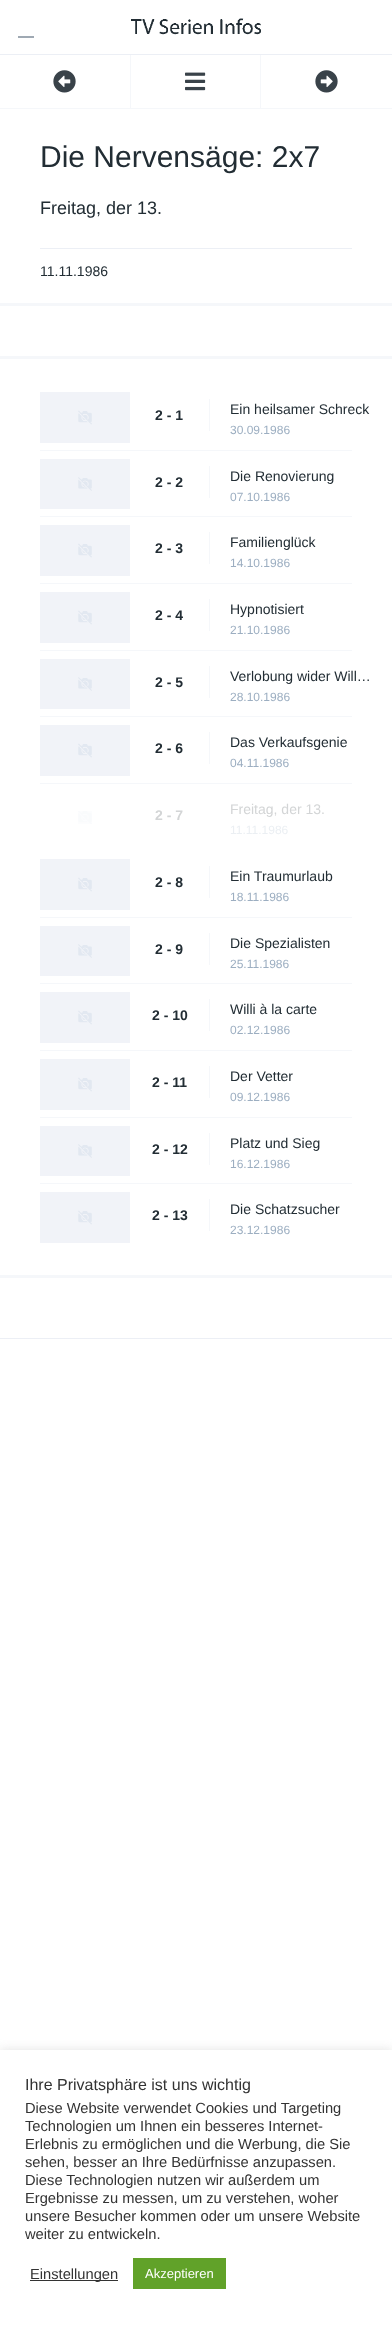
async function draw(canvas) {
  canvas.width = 392;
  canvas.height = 2336;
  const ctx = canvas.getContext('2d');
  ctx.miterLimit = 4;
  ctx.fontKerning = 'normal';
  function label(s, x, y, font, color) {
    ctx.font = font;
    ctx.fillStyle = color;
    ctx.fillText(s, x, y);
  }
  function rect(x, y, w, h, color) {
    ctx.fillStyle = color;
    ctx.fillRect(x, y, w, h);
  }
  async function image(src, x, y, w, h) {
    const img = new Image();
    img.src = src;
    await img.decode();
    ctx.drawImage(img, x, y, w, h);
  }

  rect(0, 0, 392, 2336, '#fff');
  rect(0, 54, 392, 1, '#eceff5');
  await image('assets/img1.png', 131, 18, 130, 17);
  rect(18, 36, 16, 2, '#9fa9b3');
  rect(0, 1338, 392, 1, '#eceff5');
  rect(0, 108, 392, 1, '#f5f7fa');
  rect(130, 55, 1, 53, '#f5f7fa');
  await image('assets/img2.png', 53, 70, 23, 23);
  rect(260, 55, 1, 53, '#f5f7fa');
  await image('assets/img3.png', 185, 72, 21, 19);
  await image('assets/img4.png', 315, 70, 23, 23);
  rect(0, 303, 392, 3, '#f5f7fa');
  label('Die Nervensäge: 2x7', 40, 167, '30px Liberation Sans', '#222d34');
  rect(40, 248, 312, 1, '#eceff5');
  label('Freitag, der 13.', 40, 214, '18px Liberation Sans', '#222d34');
  label('11.11.1986', 40, 276, '14px Liberation Sans', '#222d34');
  rect(0, 356, 392, 3, '#f5f7fa');
  rect(0, 1275, 392, 3, '#f5f7fa');
  rect(40, 450, 312, 1, '#f5f7fa');
  await image('assets/img5.png', 40, 392, 90, 51);
  rect(209, 399, 1, 32, '#f5f7fa');
  label('2 - 1', 155, 420, 'bold 14px Liberation Sans', '#222d34');
  label('Ein heilsamer Schreck', 230, 414, '14px Liberation Sans', '#222d34');
  label('30.09.1986', 230, 434, '12px Liberation Sans', '#9caec1');
  rect(40, 516, 312, 1, '#f5f7fa');
  await image('assets/img6.png', 40, 459, 90, 50);
  rect(209, 466, 1, 32, '#f5f7fa');
  label('2 - 2', 155, 487, 'bold 14px Liberation Sans', '#222d34');
  label('Die Renovierung', 230, 481, '14px Liberation Sans', '#222d34');
  label('07.10.1986', 230, 501, '12px Liberation Sans', '#9caec1');
  rect(40, 583, 312, 1, '#f5f7fa');
  await image('assets/img7.png', 40, 525, 90, 51);
  rect(209, 532, 1, 32, '#f5f7fa');
  label('2 - 3', 155, 553, 'bold 14px Liberation Sans', '#222d34');
  label('Familienglück', 230, 547, '14px Liberation Sans', '#222d34');
  label('14.10.1986', 230, 567, '12px Liberation Sans', '#9caec1');
  rect(40, 650, 312, 1, '#f5f7fa');
  await image('assets/img5.png', 40, 592, 90, 51);
  rect(209, 599, 1, 32, '#f5f7fa');
  label('2 - 4', 155, 620, 'bold 14px Liberation Sans', '#222d34');
  label('Hypnotisiert', 230, 614, '14px Liberation Sans', '#222d34');
  label('21.10.1986', 230, 634, '12px Liberation Sans', '#9caec1');
  rect(40, 716, 312, 1, '#f5f7fa');
  await image('assets/img8.png', 40, 659, 90, 50);
  rect(209, 666, 1, 32, '#f5f7fa');
  label('2 - 5', 155, 687, 'bold 14px Liberation Sans', '#222d34');
  label('Verlobung wider Will…', 230, 681, '14px Liberation Sans', '#222d34');
  label('28.10.1986', 230, 701, '12px Liberation Sans', '#9caec1');
  rect(40, 783, 312, 1, '#f5f7fa');
  await image('assets/img5.png', 40, 725, 90, 51);
  rect(209, 732, 1, 32, '#f5f7fa');
  label('2 - 6', 155, 753, 'bold 14px Liberation Sans', '#222d34');
  label('Das Verkaufsgenie', 230, 747, '14px Liberation Sans', '#222d34');
  label('04.11.1986', 230, 767, '12px Liberation Sans', '#9caec1');
  await image('assets/img9.png', 78, 811, 14, 13);
  label('2 - 7', 155, 820, 'bold 14px Liberation Sans', '#d3d5d6');
  label('Freitag, der 13.', 230, 814, '14px Liberation Sans', '#d3d5d6');
  label('11.11.1986', 230, 834, '12px Liberation Sans', '#ebeff3');
  rect(40, 917, 312, 1, '#f5f7fa');
  await image('assets/img5.png', 40, 859, 90, 51);
  rect(209, 866, 1, 32, '#f5f7fa');
  label('2 - 8', 155, 887, 'bold 14px Liberation Sans', '#222d34');
  label('Ein Traumurlaub', 230, 881, '14px Liberation Sans', '#222d34');
  label('18.11.1986', 230, 901, '12px Liberation Sans', '#9caec1');
  rect(40, 983, 312, 1, '#f5f7fa');
  await image('assets/img8.png', 40, 926, 90, 50);
  rect(209, 933, 1, 32, '#f5f7fa');
  label('2 - 9', 155, 954, 'bold 14px Liberation Sans', '#222d34');
  label('Die Spezialisten', 230, 948, '14px Liberation Sans', '#222d34');
  label('25.11.1986', 230, 968, '12px Liberation Sans', '#9caec1');
  rect(40, 1050, 312, 1, '#f5f7fa');
  await image('assets/img5.png', 40, 992, 90, 51);
  rect(209, 999, 1, 32, '#f5f7fa');
  label('2 - 10', 152, 1020, 'bold 14px Liberation Sans', '#222d34');
  label('Willi à la carte', 230, 1014, '14px Liberation Sans', '#222d34');
  label('02.12.1986', 230, 1034, '12px Liberation Sans', '#9caec1');
  rect(40, 1117, 312, 1, '#f5f7fa');
  await image('assets/img5.png', 40, 1059, 90, 51);
  rect(209, 1066, 1, 32, '#f5f7fa');
  label('2 - 11', 152, 1087, 'bold 14px Liberation Sans', '#222d34');
  label('Der Vetter', 230, 1081, '14px Liberation Sans', '#222d34');
  label('09.12.1986', 230, 1101, '12px Liberation Sans', '#9caec1');
  rect(40, 1183, 312, 1, '#f5f7fa');
  await image('assets/img8.png', 40, 1126, 90, 50);
  rect(209, 1133, 1, 32, '#f5f7fa');
  label('2 - 12', 152, 1154, 'bold 14px Liberation Sans', '#222d34');
  label('Platz und Sieg', 230, 1148, '14px Liberation Sans', '#222d34');
  label('16.12.1986', 230, 1168, '12px Liberation Sans', '#9caec1');
  await image('assets/img5.png', 40, 1192, 90, 51);
  rect(209, 1199, 1, 32, '#f5f7fa');
  label('2 - 13', 152, 1220, 'bold 14px Liberation Sans', '#222d34');
  label('Die Schatzsucher', 230, 1214, '14px Liberation Sans', '#222d34');
  label('23.12.1986', 230, 1234, '12px Liberation Sans', '#9caec1');
  ctx.fillStyle = '#acabab4d';
  ctx.filter = 'blur(5px)';
  ctx.beginPath();
  ctx.rect(0, 2049, 392, 286);
  ctx.fill();
  ctx.filter = 'none';
  rect(0, 2050, 392, 286, '#fff');
  label('Ihre Privatsphäre ist uns wichtig', 25, 2090, '16px Liberation Sans', '#333');
  label('Diese Website verwendet Cookies und Targeting', 25, 2113, '14.7px Liberation Sans', '#333');
  label('Technologien um Ihnen ein besseres Internet-', 25, 2131, '14.7px Liberation Sans', '#333');
  label('Erlebnis zu ermöglichen und die Werbung, die Sie', 25, 2149, '14.7px Liberation Sans', '#333');
  label('sehen, besser an Ihre Bedürfnisse anzupassen.', 25, 2167, '14.7px Liberation Sans', '#333');
  label('Diese Technologien nutzen wir außerdem um', 25, 2185, '14.7px Liberation Sans', '#333');
  label('Ergebnisse zu messen, um zu verstehen, woher', 25, 2203, '14.7px Liberation Sans', '#333');
  label('unsere Besucher kommen oder um unsere Website', 25, 2221, '14.7px Liberation Sans', '#333');
  label('weiter zu entwickeln.', 25, 2239, '14.7px Liberation Sans', '#333');
  rect(30, 2280, 88, 1, '#333');
  label('Einstellungen', 30, 2279, '14.7px Liberation Sans', '#333');
  rect(133, 2258, 93, 31, '#61a229');
  label('Akzeptieren', 145, 2278, '13px Liberation Sans', '#fff');
}

draw(document.querySelector('canvas'));
